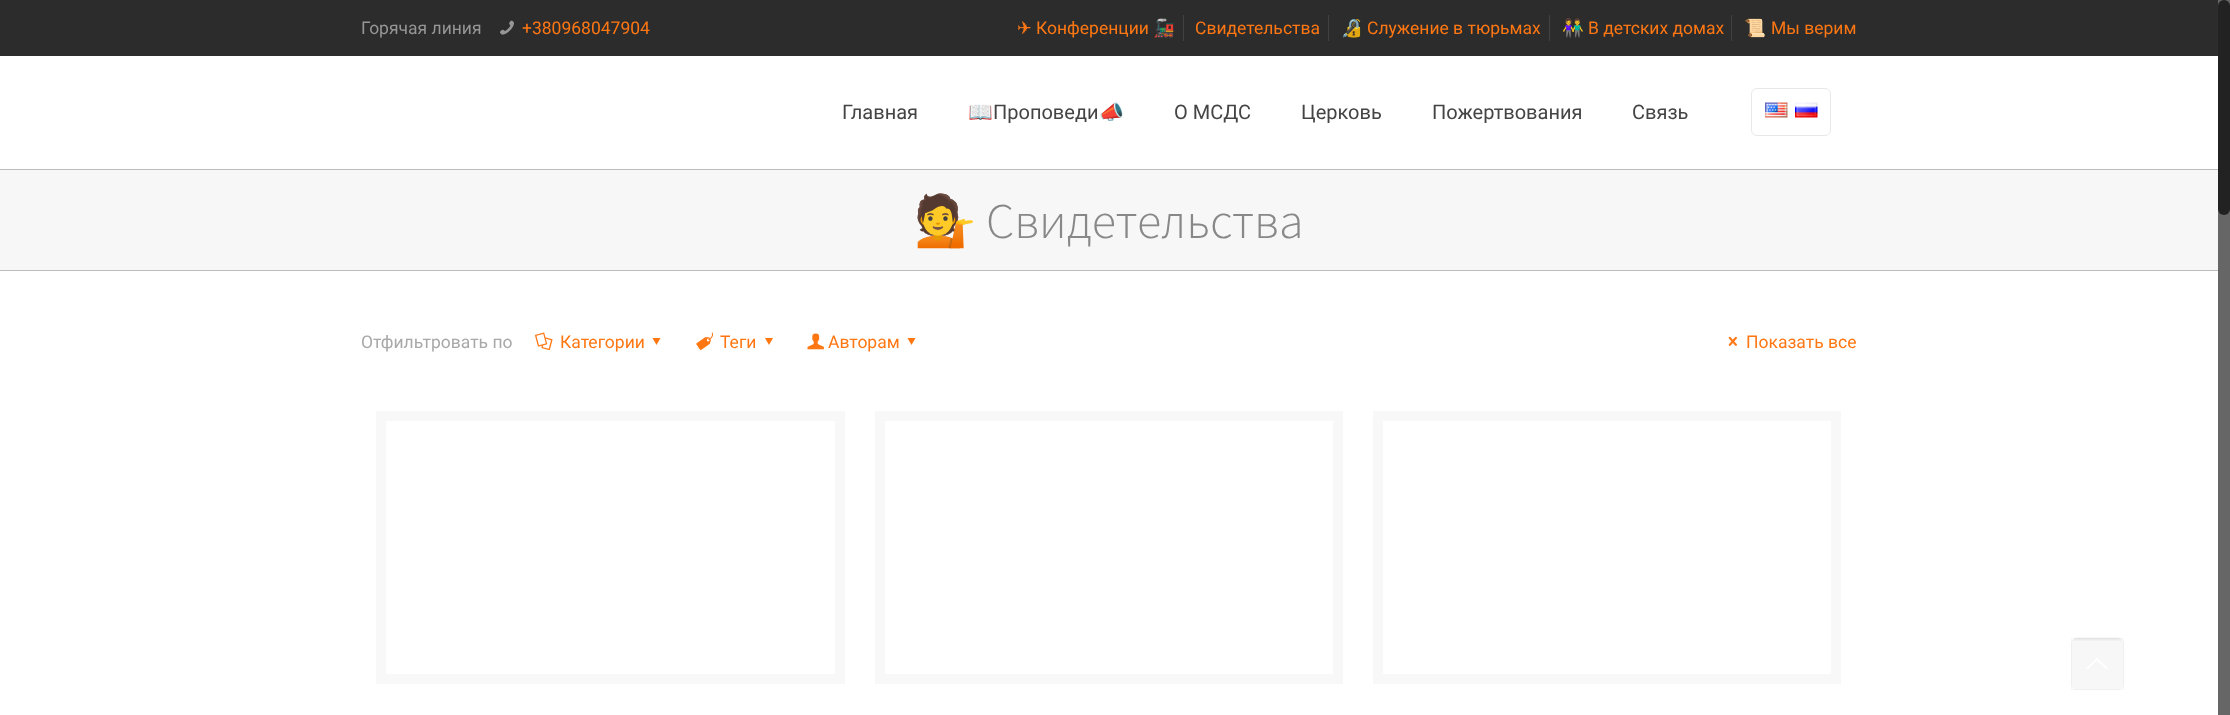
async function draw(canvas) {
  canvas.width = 2230;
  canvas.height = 715;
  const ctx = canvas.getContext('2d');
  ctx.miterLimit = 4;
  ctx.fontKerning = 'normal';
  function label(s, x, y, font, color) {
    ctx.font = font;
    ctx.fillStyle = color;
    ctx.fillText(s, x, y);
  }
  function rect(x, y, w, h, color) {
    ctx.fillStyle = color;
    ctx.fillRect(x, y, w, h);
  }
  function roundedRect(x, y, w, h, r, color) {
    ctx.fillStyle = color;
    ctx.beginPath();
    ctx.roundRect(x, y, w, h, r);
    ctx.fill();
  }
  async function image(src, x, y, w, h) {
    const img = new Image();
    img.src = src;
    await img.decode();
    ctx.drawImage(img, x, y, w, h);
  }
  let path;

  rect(0, 0, 2230, 715, '#fff');
  rect(0, 0, 2218, 56, '#2c2c2c');
  label('Горячая линия', 361, 34, '17.5px Roboto', '#969696');
  await image('assets/img1.png', 500, 20, 14, 15);
  label('+380968047904', 522, 34, '17.5px Roboto', '#ff7713');
  rect(1183, 15, 1, 26, '#414141');
  label('✈', 1017, 34, '17.5px DejaVu Sans', '#ff7713');
  label('Конференции', 1036, 34, '17.5px Roboto', '#ff7713');
  label('🚂', 1153, 34, '17.5px Noto Color Emoji', '#ff7713');
  rect(1328, 15, 1, 26, '#414141');
  label('Свидетельства', 1195, 34, '17.5px Roboto', '#ff7713');
  rect(1549, 15, 1, 26, '#414141');
  label('🔏', 1341, 34, '17.5px "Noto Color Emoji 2"', '#ff7713');
  label('Служение в тюрьмах', 1367, 34, '17.5px Roboto', '#ff7713');
  rect(1731, 15, 1, 26, '#414141');
  label('👫', 1562, 34, '17.5px "Noto Color Emoji 2"', '#ff7713');
  label('В детских домах', 1588, 34, '17.5px Roboto', '#ff7713');
  label('📜', 1744, 34, '17.5px "Noto Color Emoji 2"', '#ff7713');
  label('Мы верим', 1771, 34, '17.5px Roboto', '#ff7713');
  rect(0, 169, 2218, 1, '#bbbcbf');
  label('Главная', 842, 119, '20px Roboto', '#444');
  label('📖', 968, 119, '20px "Noto Color Emoji 2"', '#444');
  label('Проповеди', 993, 119, '20px Roboto', '#444');
  label('📣', 1099, 119, '20px "Noto Color Emoji 2"', '#444');
  label('О МСДС', 1174, 119, '20px Roboto', '#444');
  label('Церковь', 1301, 119, '20px Roboto', '#444');
  label('Пожертвования', 1432, 119, '20px Roboto', '#444');
  label('Связь', 1632, 119, '20px Roboto', '#444');
  ctx.beginPath();
  ctx.roundRect(1751.5, 88.5, 79, 47, 5.5);
  ctx.strokeStyle = '#e8e8e8';
  ctx.stroke();
  await image('assets/img2.png', 1765, 102, 23, 16);
  await image('assets/img3.png', 1795, 102, 23, 16);
  rect(0, 170, 2218, 100, '#f7f7f7');
  rect(0, 270, 2218, 1, '#bbbcbf');
  label('💁', 914, 238, '50px "Noto Color Emoji 2"', '#888');
  label('Свидетельства', 986, 238, '300 50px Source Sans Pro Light', '#888');
  label('Отфильтровать по', 361, 348, '17.5px Roboto', '#a8a8a8');
  await image('assets/img4.png', 535, 332, 18, 19);
  label('Категории', 560, 348, '17.5px Roboto', '#ff7713');
  path = new Path2D('M660.5 338L656.5 345L652.5 338Z');
  ctx.fill(path);
  await image('assets/img5.png', 696, 332, 18, 19);
  label('Теги', 720, 348, '17.5px Roboto', '#ff7713');
  path = new Path2D('M773 338L769 345L765 338Z');
  ctx.fill(path);
  await image('assets/img6.png', 807, 333, 17, 17);
  label('Авторам', 828, 348, '17.5px Roboto', '#ff7713');
  path = new Path2D('M915.5 338L911.5 345L907.5 338Z');
  ctx.fill(path);
  await image('assets/img7.png', 1728, 336, 9, 10);
  label('Показать все', 1746, 348, '17.5px Roboto', '#ff7713');
  ctx.strokeStyle = '#f8f8f8';
  ctx.lineWidth = 10;
  ctx.strokeRect(381, 416, 459, 263);
  ctx.strokeRect(880, 416, 458, 263);
  ctx.strokeRect(1378, 416, 458, 263);
  rect(2218, 0, 12, 715, '#666');
  roundedRect(2218, 0, 12, 215, 6, '#222');
  roundedRect(2071, 638, 53, 52, 6, '#f7f7f7');
  await image('assets/img8.png', 2073, 637, 49, 4);
  ctx.strokeStyle = '#00000008';
  ctx.lineWidth = 1;
  ctx.strokeRect(2071.5, 638.5, 52, 51);
  await image('assets/img9.png', 2086, 658, 22, 11);
}

draw(document.querySelector('canvas'));
